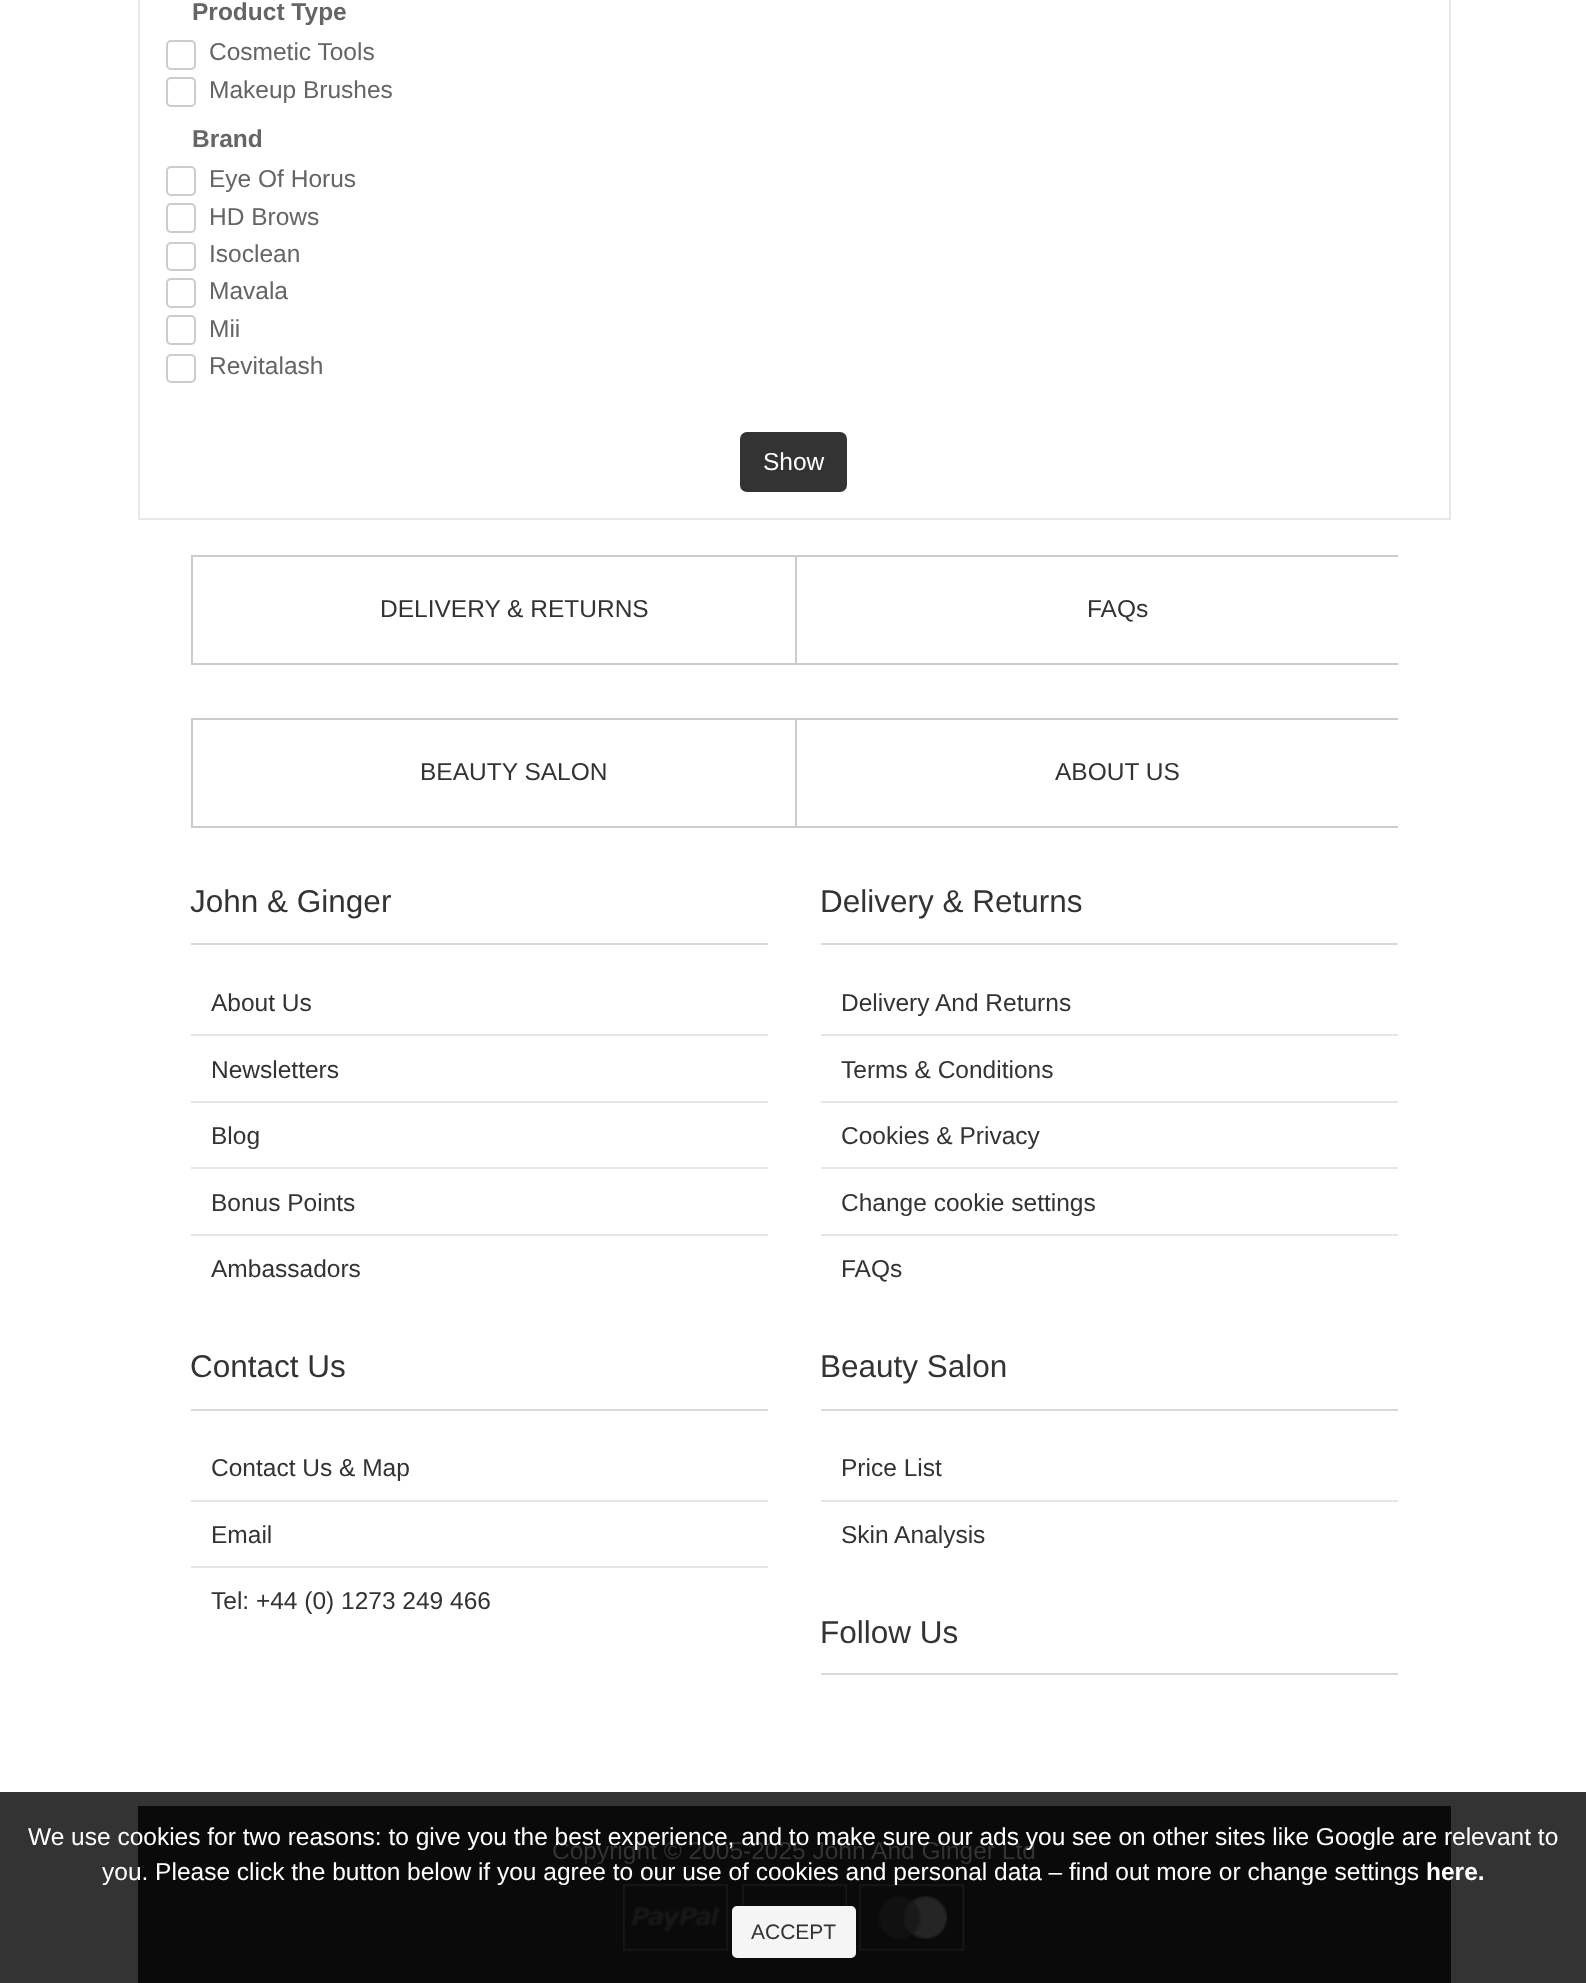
async function draw(canvas) {
  canvas.width = 1586;
  canvas.height = 1983;
  const ctx = canvas.getContext('2d');
  ctx.miterLimit = 4;
  ctx.fontKerning = 'normal';
  function label(s, x, y, font, color) {
    ctx.font = font;
    ctx.fillStyle = color;
    ctx.fillText(s, x, y);
  }
  function rect(x, y, w, h, color) {
    ctx.fillStyle = color;
    ctx.fillRect(x, y, w, h);
  }
  async function image(src, x, y, w, h) {
    const img = new Image();
    img.src = src;
    await img.decode();
    ctx.drawImage(img, x, y, w, h);
  }

  rect(0, 0, 1586, 1983, '#fff');
  rect(0, 1792, 1586, 191, '#333');
  ctx.strokeStyle = '#e8e8e8';
  ctx.lineWidth = 2;
  ctx.strokeRect(139, -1, 1311, 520);
  label('Product Type', 192, 20, 'bold 24.5px Liberation Sans', '#656565');
  ctx.beginPath();
  ctx.roundRect(167, 41, 28, 28, 4);
  ctx.strokeStyle = '#ccc';
  ctx.stroke();
  label('Cosmetic Tools', 209, 60, '24.5px Liberation Sans', '#656565');
  ctx.beginPath();
  ctx.roundRect(167, 78, 28, 28, 4);
  ctx.stroke();
  label('Makeup Brushes', 209, 98, '24.5px Liberation Sans', '#656565');
  label('Brand', 192, 147, 'bold 24.5px Liberation Sans', '#656565');
  ctx.beginPath();
  ctx.roundRect(167, 167, 28, 28, 4);
  ctx.stroke();
  label('Eye Of Horus', 209, 187, '24.5px Liberation Sans', '#656565');
  ctx.beginPath();
  ctx.roundRect(167, 204, 28, 28, 4);
  ctx.stroke();
  label('HD Brows', 209, 225, '24.5px Liberation Sans', '#656565');
  ctx.beginPath();
  ctx.roundRect(167, 243, 28, 27, 4);
  ctx.stroke();
  label('Isoclean', 209, 262, '24.5px Liberation Sans', '#656565');
  ctx.beginPath();
  ctx.roundRect(167, 279, 28, 28, 4);
  ctx.stroke();
  label('Mavala', 209, 299, '24.5px Liberation Sans', '#656565');
  ctx.beginPath();
  ctx.roundRect(167, 316, 28, 28, 4);
  ctx.stroke();
  label('Mii', 209, 337, '24.5px Liberation Sans', '#656565');
  ctx.beginPath();
  ctx.roundRect(167, 355, 28, 27, 4);
  ctx.stroke();
  label('Revitalash', 209, 374, '24.5px Liberation Sans', '#656565');
  ctx.fillStyle = '#333';
  ctx.beginPath();
  ctx.roundRect(741, 433, 105, 58, 6);
  ctx.fill();
  ctx.strokeStyle = '#333';
  ctx.stroke();
  label('Show', 763, 470, '24.5px Liberation Sans', '#fff');
  rect(191, 555, 1207, 2, '#ccc');
  rect(191, 663, 1207, 2, '#ccc');
  rect(191, 555, 2, 110, '#ccc');
  label('DELIVERY & RETURNS', 380, 617, '24.5px Liberation Sans', '#333');
  rect(795, 555, 2, 110, '#ccc');
  label('FAQs', 1087, 617, '24.5px Liberation Sans', '#333');
  rect(191, 718, 1207, 2, '#ccc');
  rect(191, 826, 1207, 2, '#ccc');
  rect(191, 718, 2, 110, '#ccc');
  label('BEAUTY SALON', 420, 780, '24.5px Liberation Sans', '#333');
  rect(795, 718, 2, 110, '#ccc');
  label('ABOUT US', 1055, 780, '24.5px Liberation Sans', '#333');
  rect(191, 943, 577, 2, '#d9d9d9');
  label('John & Ginger', 190, 912, '31.5px Liberation Sans', '#333');
  rect(191, 1034, 577, 2, '#e6e6e6');
  label('', 190, 1011, '24.5px FontAwesome', '#333');
  label('About Us', 211, 1011, '24.5px Liberation Sans', '#333');
  rect(191, 1101, 577, 2, '#e6e6e6');
  label('', 190, 1078, '24.5px FontAwesome', '#333');
  label('Newsletters', 211, 1078, '24.5px Liberation Sans', '#333');
  rect(191, 1167, 577, 2, '#e6e6e6');
  label('', 190, 1144, '24.5px FontAwesome', '#333');
  label('Blog', 211, 1144, '24.5px Liberation Sans', '#333');
  rect(191, 1234, 577, 2, '#e6e6e6');
  label('', 190, 1211, '24.5px FontAwesome', '#333');
  label('Bonus Points', 211, 1211, '24.5px Liberation Sans', '#333');
  label('', 190, 1277, '24.5px FontAwesome', '#333');
  label('Ambassadors', 211, 1277, '24.5px Liberation Sans', '#333');
  rect(821, 943, 577, 2, '#d9d9d9');
  label('Delivery & Returns', 820, 912, '31.5px Liberation Sans', '#333');
  rect(821, 1034, 577, 2, '#e6e6e6');
  label('', 820, 1011, '24.5px FontAwesome', '#333');
  label('Delivery And Returns', 841, 1011, '24.5px Liberation Sans', '#333');
  rect(821, 1101, 577, 2, '#e6e6e6');
  label('', 820, 1078, '24.5px FontAwesome', '#333');
  label('Terms & Conditions', 841, 1078, '24.5px Liberation Sans', '#333');
  rect(821, 1167, 577, 2, '#e6e6e6');
  label('', 820, 1144, '24.5px FontAwesome', '#333');
  label('Cookies & Privacy', 841, 1144, '24.5px Liberation Sans', '#333');
  rect(821, 1234, 577, 2, '#e6e6e6');
  label('', 820, 1211, '24.5px FontAwesome', '#333');
  label('Change cookie settings', 841, 1211, '24.5px Liberation Sans', '#333');
  label('', 820, 1277, '24.5px FontAwesome', '#333');
  label('FAQs', 841, 1277, '24.5px Liberation Sans', '#333');
  rect(191, 1409, 577, 2, '#d9d9d9');
  label('Contact Us', 190, 1377, '31.5px Liberation Sans', '#333');
  rect(191, 1500, 577, 2, '#e6e6e6');
  label('', 190, 1476, '24.5px FontAwesome', '#333');
  label('Contact Us & Map', 211, 1476, '24.5px Liberation Sans', '#333');
  rect(191, 1566, 577, 2, '#e6e6e6');
  label('', 190, 1543, '24.5px FontAwesome', '#333');
  label('Email', 211, 1543, '24.5px Liberation Sans', '#333');
  label('', 190, 1609, '24.5px FontAwesome', '#333');
  label('Tel: +44 (0) 1273 249 466', 211, 1609, '24.5px Liberation Sans', '#333');
  rect(821, 1409, 577, 2, '#d9d9d9');
  label('Beauty Salon', 820, 1377, '31.5px Liberation Sans', '#333');
  rect(821, 1500, 577, 2, '#e6e6e6');
  label('', 820, 1476, '24.5px FontAwesome', '#333');
  label('Price List', 841, 1476, '24.5px Liberation Sans', '#333');
  label('', 820, 1543, '24.5px FontAwesome', '#333');
  label('Skin Analysis', 841, 1543, '24.5px Liberation Sans', '#333');
  rect(821, 1673, 577, 2, '#d9d9d9');
  label('Follow Us', 820, 1643, '31.5px Liberation Sans', '#333');
  rect(138, 1806, 1313, 177, '#0a0a0a');
  label('Copyright © 2005-2025 John And Ginger Ltd', 552, 1859, '24.5px Liberation Sans', '#333');
  await image('assets/img1.png', 623, 1884, 105, 67);
  await image('assets/img2.png', 742, 1884, 105, 22);
  await image('assets/img3.png', 859, 1884, 106, 67);
  label('We use cookies for two reasons: to give you the best experience, and to make sure our ads you see on other sites like Google are relevant to', 28, 1845, '24.5px Liberation Sans', '#fff');
  label('you. Please click the button below if you agree to our use of cookies and personal data – find out more or change settings', 102, 1880, '24.5px Liberation Sans', '#fff');
  label('here.', 1426, 1880, 'bold 24.5px Liberation Sans', '#fff');
  ctx.fillStyle = '#f5f5f5';
  ctx.beginPath();
  ctx.roundRect(733, 1907, 122, 50, 4);
  ctx.fill();
  ctx.strokeStyle = '#f5f5f5';
  ctx.stroke();
  label('ACCEPT', 751, 1939, '21px Liberation Sans', '#333');
}

draw(document.querySelector('canvas'));
